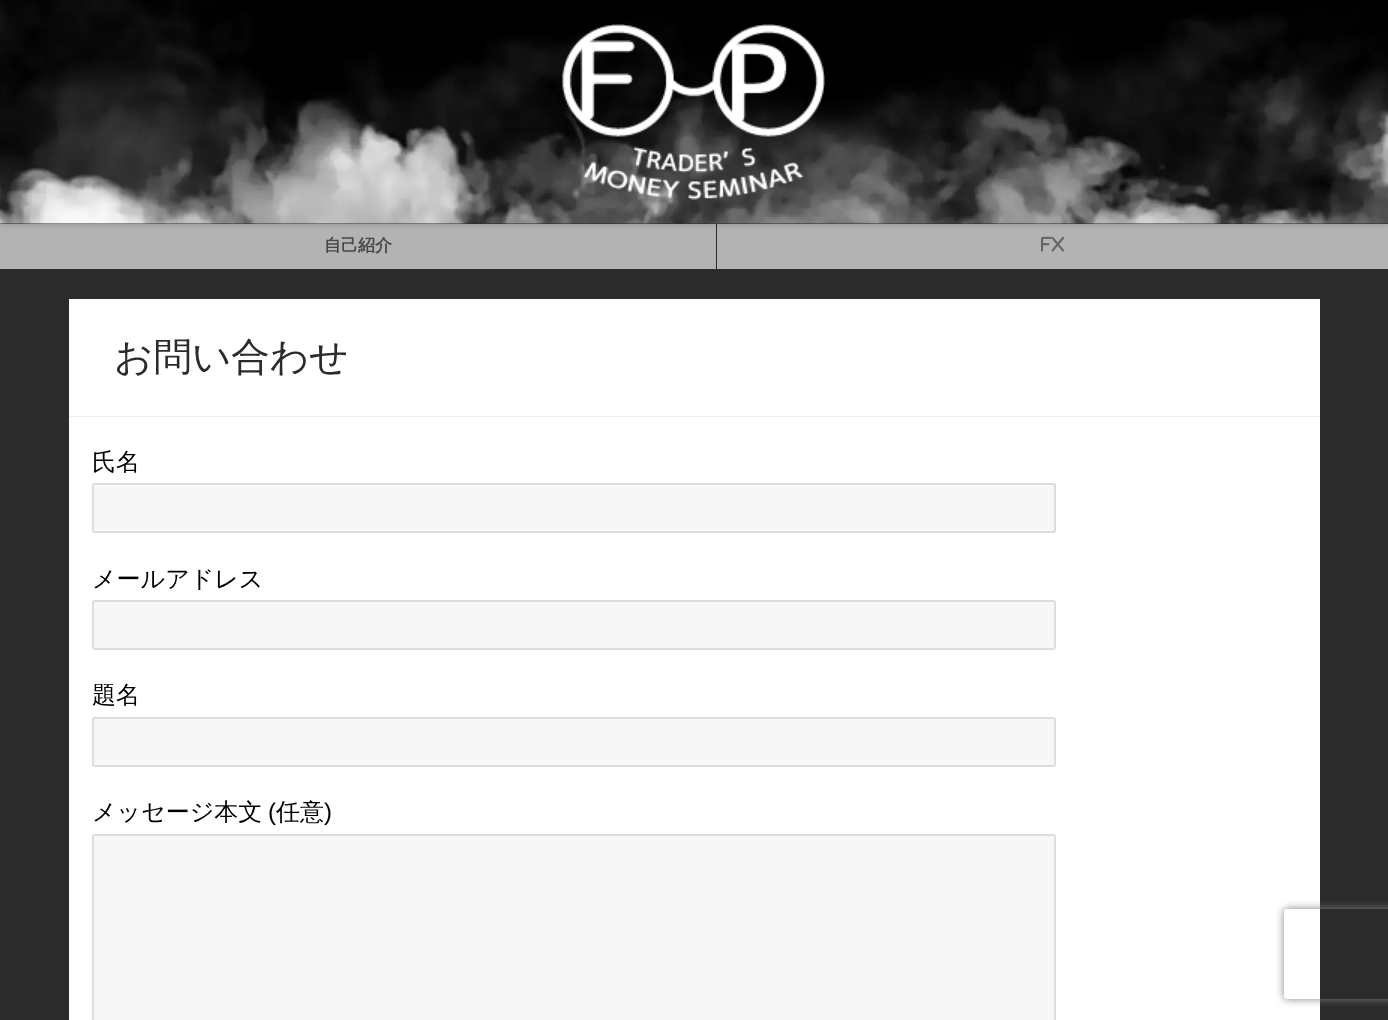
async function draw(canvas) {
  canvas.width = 1388;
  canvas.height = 1020;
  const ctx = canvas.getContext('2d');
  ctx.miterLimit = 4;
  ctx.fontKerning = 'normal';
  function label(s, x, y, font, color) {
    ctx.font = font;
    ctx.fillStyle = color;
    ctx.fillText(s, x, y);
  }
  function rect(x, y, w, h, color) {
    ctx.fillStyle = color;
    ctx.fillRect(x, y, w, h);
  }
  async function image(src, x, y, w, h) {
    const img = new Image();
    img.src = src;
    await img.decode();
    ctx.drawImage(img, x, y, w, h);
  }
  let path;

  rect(0, 0, 1388, 1020, '#2b2b2b');
  rect(0, 224, 716, 45, '#b3b3b3');
  rect(717, 224, 671, 45, '#b3b3b3');
  ctx.fillStyle = '#00000033';
  ctx.filter = 'blur(3px)';
  ctx.beginPath();
  ctx.rect(0, 0, 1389, 224);
  ctx.fill();
  ctx.filter = 'none';
  rect(0, 223, 1388, 1, '#2b2b2b');
  await image('assets/img1.png', 0, 0, 1388, 224);
  await image('assets/img2.png', 562, 24, 263, 176);
  label('自己紹介', 324, 251, 'bold 17px WenQuanYi Zen Hei', '#494949');
  await image('assets/img3.png', 1041, 236, 23, 16);
  rect(69, 299, 1251, 117, '#fff');
  rect(69, 416, 1251, 1, '#eee');
  label('お問い合わせ', 114, 370, '500 38.5px WenQuanYi Zen Hei', '#2b2b2b');
  rect(69, 417, 1251, 603, '#fff');
  label('氏名', 92, 470, '500 24px WenQuanYi Zen Hei', '#000');
  ctx.fillStyle = '#f7f7f7';
  ctx.beginPath();
  ctx.roundRect(93, 484, 962, 48, 2);
  ctx.fill();
  ctx.strokeStyle = '#ddd';
  ctx.lineWidth = 2;
  ctx.stroke();
  label('メールアドレス', 92, 587, '500 24px WenQuanYi Zen Hei', '#000');
  ctx.fillStyle = '#f7f7f7';
  ctx.beginPath();
  ctx.roundRect(93, 601, 962, 48, 2);
  ctx.fill();
  ctx.stroke();
  label('題名', 92, 703, '500 24px WenQuanYi Zen Hei', '#000');
  ctx.fillStyle = '#f7f7f7';
  ctx.beginPath();
  ctx.roundRect(93, 718, 962, 48, 2);
  ctx.fill();
  ctx.stroke();
  label('メッセージ本文', 92, 820, '500 24px WenQuanYi Zen Hei', '#000');
  label('(', 268, 820, '24px Liberation Sans', '#000');
  label('任意', 276, 820, '500 24px WenQuanYi Zen Hei', '#000');
  label(')', 324, 820, '24px Liberation Sans', '#000');
  ctx.fillStyle = '#f7f7f7';
  ctx.beginPath();
  ctx.roundRect(93, 835, 962, 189, 2);
  ctx.fill();
  ctx.stroke();
  ctx.save();
  path = new Path2D('M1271 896H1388V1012H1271ZM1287 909H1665C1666.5 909 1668 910.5 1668 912V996C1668 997.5 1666.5 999 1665 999H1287C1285.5 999 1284 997.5 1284 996V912C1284 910.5 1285.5 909 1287 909Z');
  ctx.clip(path, 'evenodd');
  ctx.fillStyle = '#808080';
  ctx.filter = 'blur(4px)';
  ctx.beginPath();
  ctx.roundRect(1284, 909, 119, 90, 3);
  ctx.fill();
  ctx.filter = 'none';
  ctx.restore();
}

draw(document.querySelector('canvas'));
